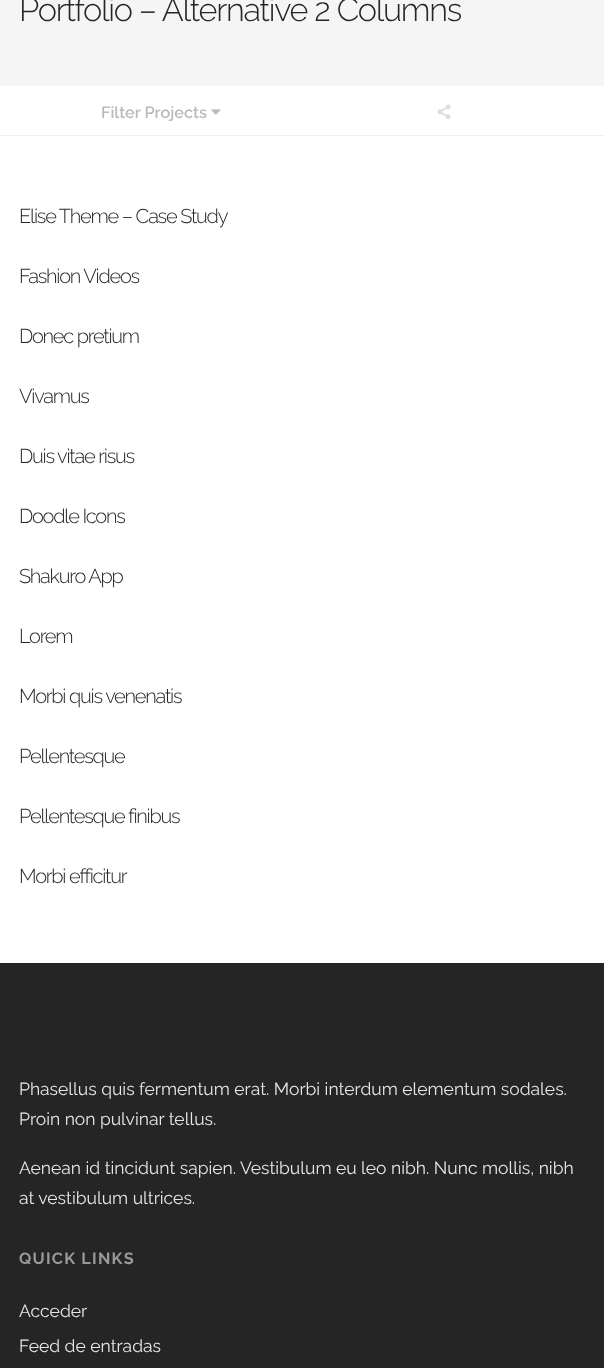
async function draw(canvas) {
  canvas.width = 604;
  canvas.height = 1368;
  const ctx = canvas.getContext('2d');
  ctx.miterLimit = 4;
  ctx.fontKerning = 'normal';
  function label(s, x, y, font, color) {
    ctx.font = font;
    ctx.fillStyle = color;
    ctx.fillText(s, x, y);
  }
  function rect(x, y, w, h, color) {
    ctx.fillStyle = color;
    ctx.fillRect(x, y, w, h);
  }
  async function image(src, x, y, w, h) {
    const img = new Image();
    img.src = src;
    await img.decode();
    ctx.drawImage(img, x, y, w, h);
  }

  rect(0, 0, 604, 1368, '#fff');
  rect(0, 0, 604, 86, '#f5f5f5');
  ctx.letterSpacing = '-1.25px';
  label('Portfolio – Alternative 2 Columns', 19, 21, '300 32.5px Raleway', '#262626');
  rect(0, 135, 604, 1, '#f0f0f0');
  ctx.letterSpacing = '0px';
  label('Filter Projects', 101, 118, '600 16.25px Raleway', '#bbb');
  await image('assets/img1.png', 211, 109, 10, 6);
  await image('assets/img2.png', 437, 104, 14, 15);
  ctx.letterSpacing = '-1.25px';
  label('Elise Theme – Case Study', 19, 223, '300 20px Raleway', '#262626');
  label('Fashion Videos', 19, 283, '300 20px Raleway', '#262626');
  label('Donec pretium', 19, 343, '300 20px Raleway', '#262626');
  label('Vivamus', 19, 403, '300 20px Raleway', '#262626');
  label('Duis vitae risus', 19, 463, '300 20px Raleway', '#262626');
  label('Doodle Icons', 19, 523, '300 20px Raleway', '#262626');
  label('Shakuro App', 19, 583, '300 20px Raleway', '#262626');
  label('Lorem', 19, 643, '300 20px Raleway', '#262626');
  label('Morbi quis venenatis', 19, 703, '300 20px Raleway', '#262626');
  label('Pellentesque', 19, 763, '300 20px Raleway', '#262626');
  label('Pellentesque finibus', 19, 823, '300 20px Raleway', '#262626');
  label('Morbi efficitur', 19, 883, '300 20px Raleway', '#262626');
  rect(0, 963, 604, 405, '#252525');
  ctx.letterSpacing = '0px';
  label('Phasellus quis fermentum erat. Morbi interdum elementum sodales.', 19, 1095, '17.5px Raleway', '#e6e6e6');
  label('Proin non pulvinar tellus.', 19, 1125, '17.5px Raleway', '#e6e6e6');
  label('Aenean id tincidunt sapien. Vestibulum eu leo nibh. Nunc mollis, nibh', 19, 1174, '17.5px Raleway', '#e6e6e6');
  label('at vestibulum ultrices.', 19, 1204, '17.5px Raleway', '#e6e6e6');
  ctx.letterSpacing = '1.25px';
  label('QUICK LINKS', 19, 1264, 'bold 16.25px Raleway', '#999');
  ctx.letterSpacing = '0px';
  label('Acceder', 19, 1317, '17.5px Raleway', '#e6e6e6');
  label('Feed de entradas', 19, 1352, '17.5px Raleway', '#e6e6e6');
}

draw(document.querySelector('canvas'));
